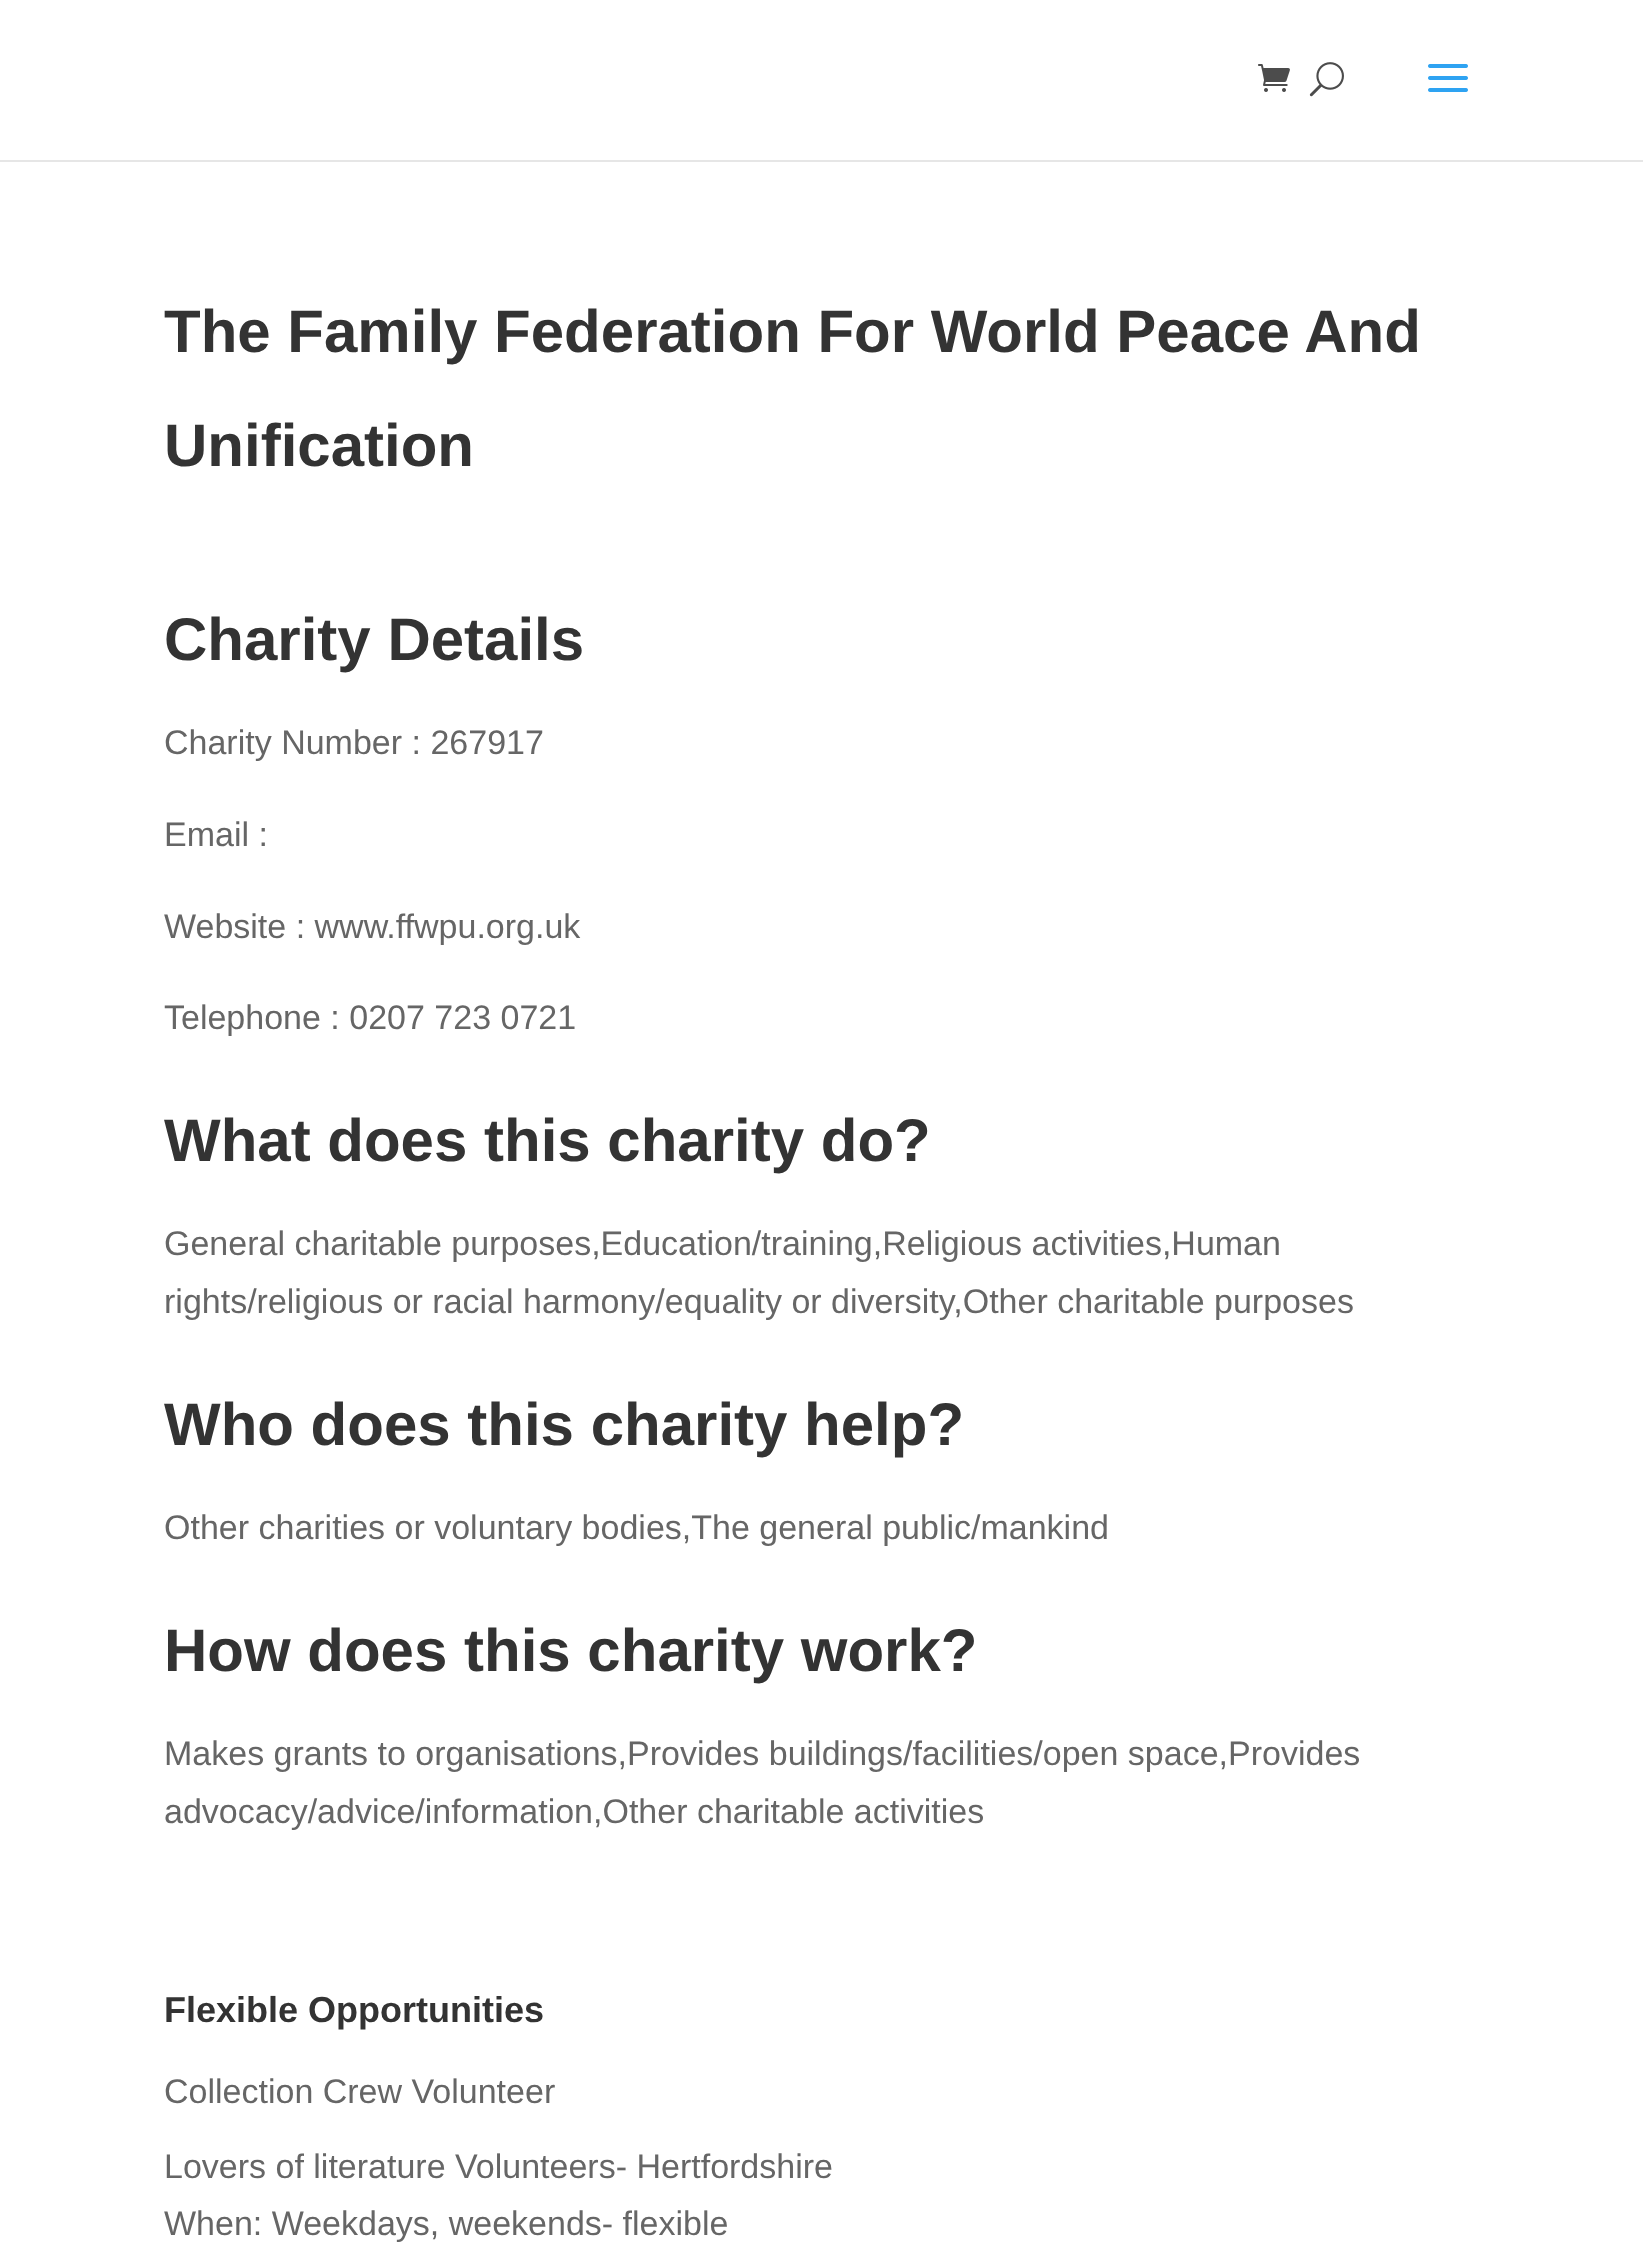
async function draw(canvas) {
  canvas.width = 1643;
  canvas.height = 2242;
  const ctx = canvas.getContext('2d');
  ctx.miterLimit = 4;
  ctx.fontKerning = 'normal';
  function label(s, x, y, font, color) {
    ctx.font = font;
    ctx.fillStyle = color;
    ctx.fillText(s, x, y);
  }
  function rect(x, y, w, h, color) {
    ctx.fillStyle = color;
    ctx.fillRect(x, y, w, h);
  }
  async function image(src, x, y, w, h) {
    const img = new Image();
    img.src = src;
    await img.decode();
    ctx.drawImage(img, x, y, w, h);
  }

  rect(0, 0, 1643, 2242, '#fff');
  rect(0, 160, 1643, 2, '#e6e6e6');
  await image('assets/img1.png', 1258, 64, 32, 28);
  await image('assets/img2.png', 1309, 62, 35, 35);
  await image('assets/img3.png', 1428, 64, 40, 28);
  label('The Family Federation For World Peace And', 164, 352, 'bold 60px Liberation Sans', '#333');
  label('Unification', 164, 466, 'bold 60px Liberation Sans', '#333');
  label('Charity Details', 164, 660, 'bold 60px Liberation Sans', '#333');
  label('Charity Number : 267917', 164, 754, '34px Liberation Sans', '#666');
  label('Email :', 164, 846, '34px Liberation Sans', '#666');
  label('Website : www.ffwpu.org.uk', 164, 938, '34px Liberation Sans', '#666');
  label('Telephone : 0207 723 0721', 164, 1029, '34px Liberation Sans', '#666');
  label('What does this charity do?', 164, 1161, 'bold 60px Liberation Sans', '#333');
  label('General charitable purposes,Education/training,Religious activities,Human', 164, 1255, '34px Liberation Sans', '#666');
  label('rights/religious or racial harmony/equality or diversity,Other charitable purposes', 164, 1313, '34px Liberation Sans', '#666');
  label('Who does this charity help?', 164, 1445, 'bold 60px Liberation Sans', '#333');
  label('Other charities or voluntary bodies,The general public/mankind', 164, 1539, '34px Liberation Sans', '#666');
  label('How does this charity work?', 164, 1671, 'bold 60px Liberation Sans', '#333');
  label('Makes grants to organisations,Provides buildings/facilities/open space,Provides', 164, 1765, '34px Liberation Sans', '#666');
  label('advocacy/advice/information,Other charitable activities', 164, 1823, '34px Liberation Sans', '#666');
  label('Flexible Opportunities', 164, 2022, 'bold 36px Liberation Sans', '#333');
  label('Collection Crew Volunteer', 164, 2103, '34px Liberation Sans', '#666');
  label('Lovers of literature Volunteers- Hertfordshire', 164, 2178, '34px Liberation Sans', '#666');
  label('When: Weekdays, weekends- flexible', 164, 2235, '34px Liberation Sans', '#666');
}

draw(document.querySelector('canvas'));
